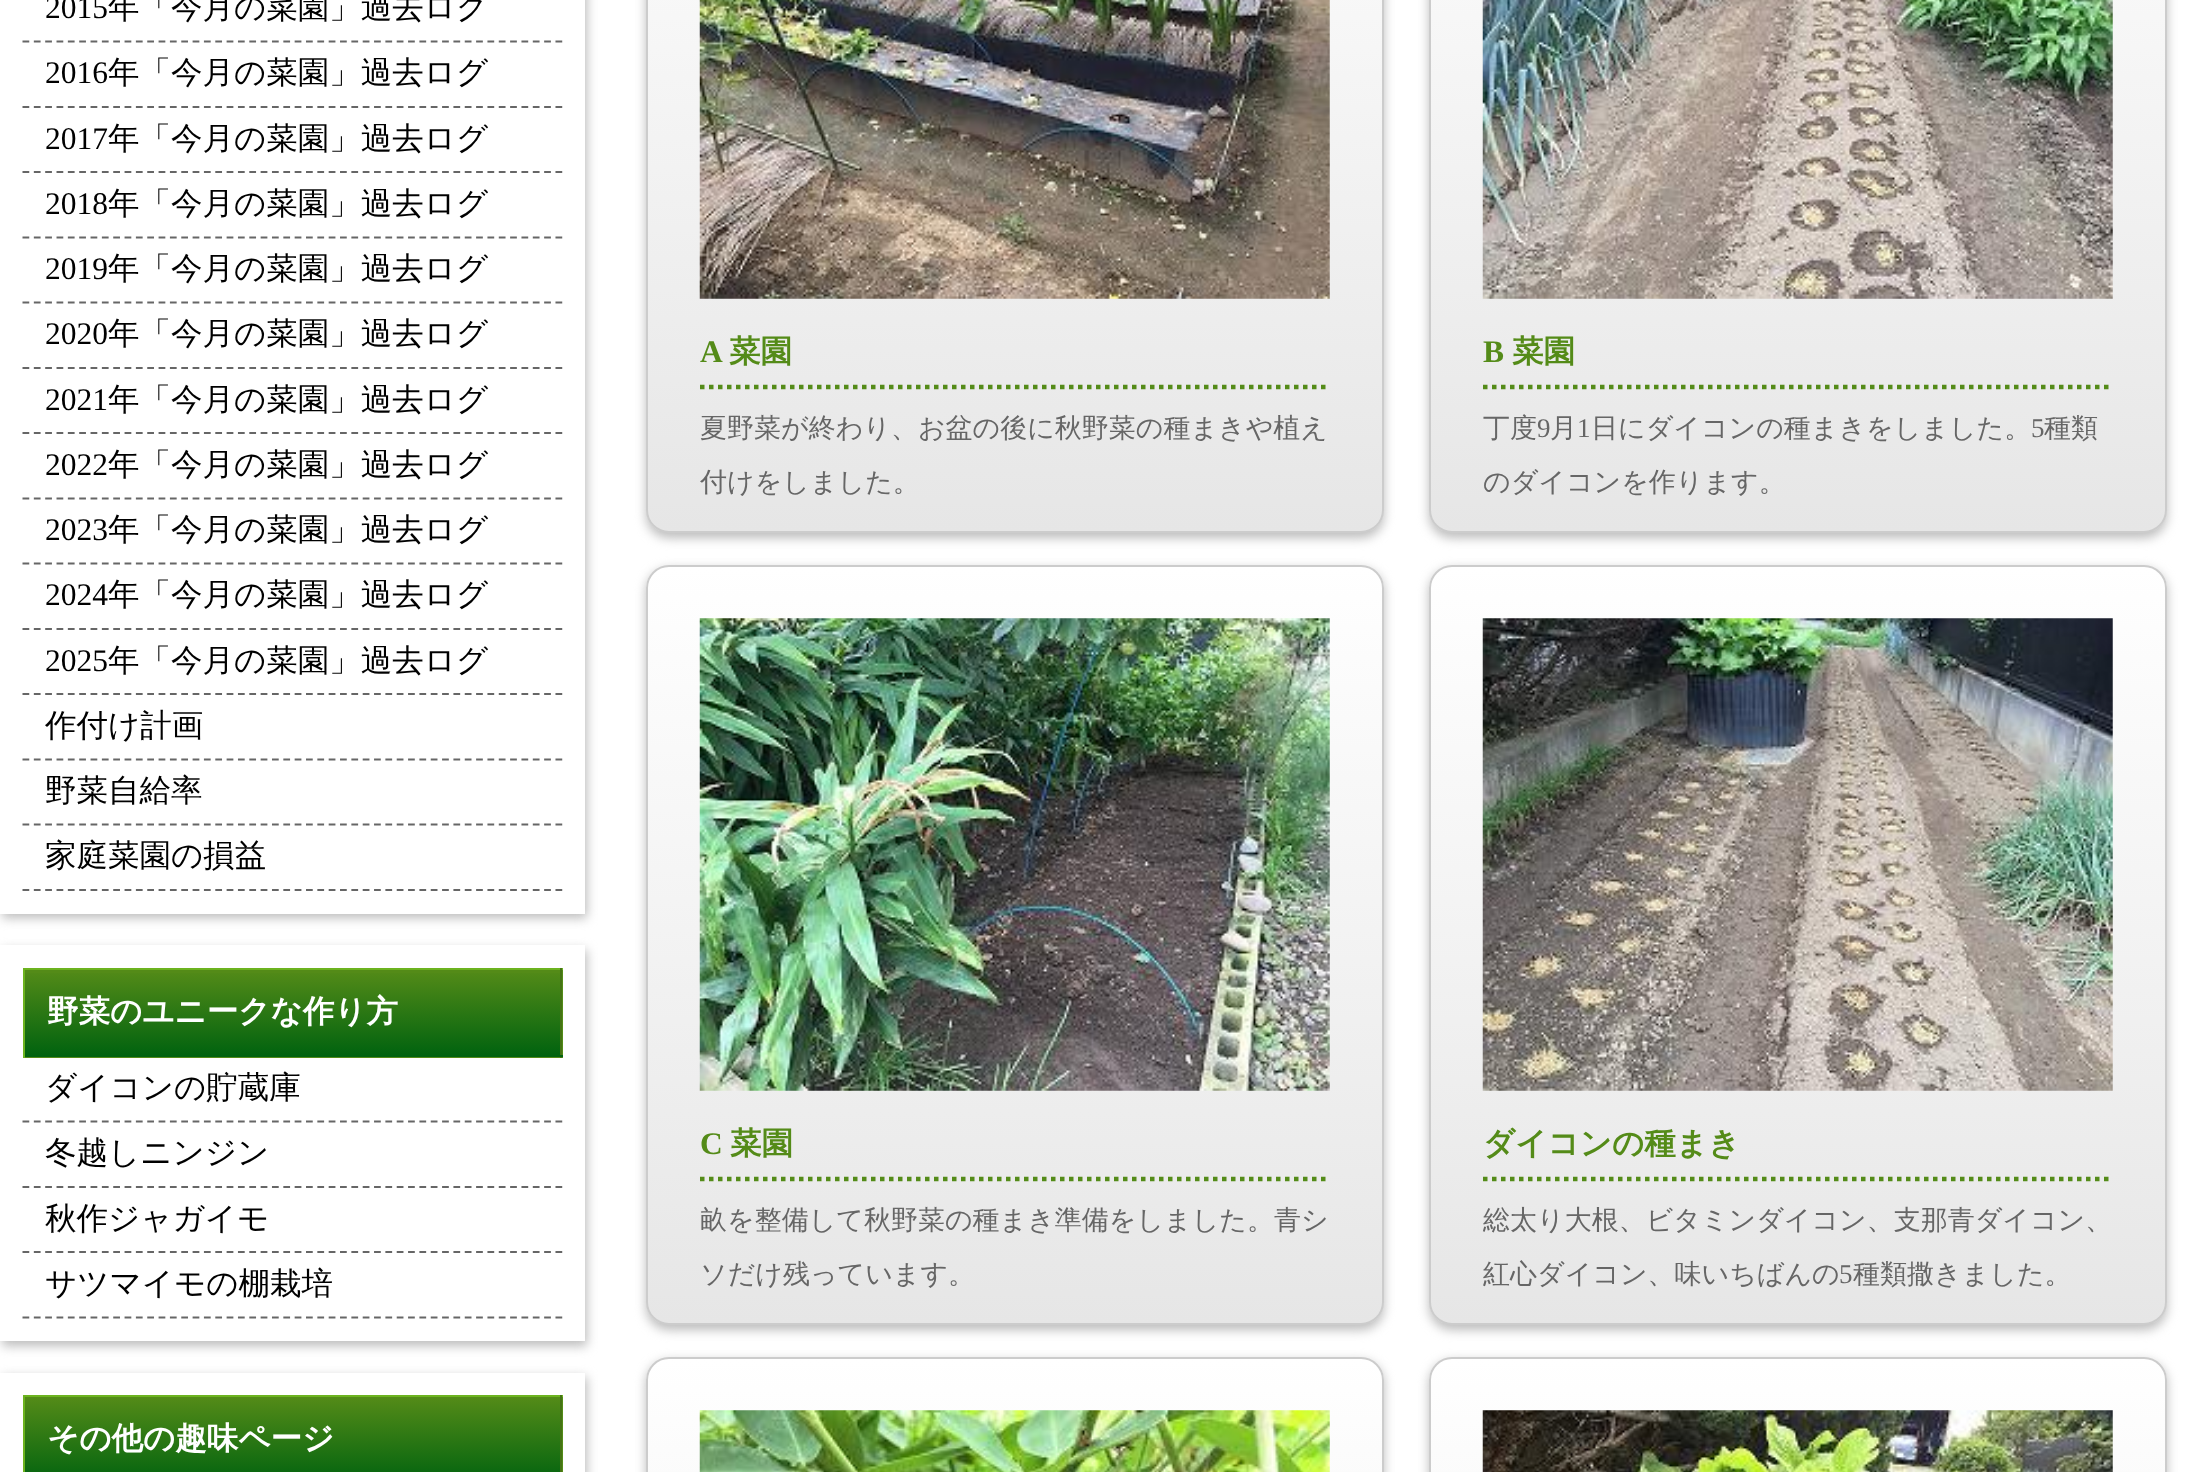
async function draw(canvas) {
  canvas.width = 2188;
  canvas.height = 1472;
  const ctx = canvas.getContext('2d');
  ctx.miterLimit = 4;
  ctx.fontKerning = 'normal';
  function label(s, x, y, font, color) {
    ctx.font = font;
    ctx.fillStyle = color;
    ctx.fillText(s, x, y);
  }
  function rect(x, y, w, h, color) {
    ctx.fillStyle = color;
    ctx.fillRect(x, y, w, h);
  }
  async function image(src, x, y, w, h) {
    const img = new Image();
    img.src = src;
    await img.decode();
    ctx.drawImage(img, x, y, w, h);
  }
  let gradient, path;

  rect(0, 0, 2188, 1472, '#fff');
  ctx.fillStyle = '#bcbcbc';
  ctx.filter = 'blur(5.5px)';
  ctx.beginPath();
  ctx.rect(2, -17, 585, 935);
  ctx.fill();
  ctx.filter = 'none';
  rect(0, 0, 585, 914, '#fff');
  path = new Path2D('M22.5 41.5H562.5');
  ctx.strokeStyle = '#666';
  ctx.lineWidth = 2.2;
  ctx.setLineDash([6.75, 4.59]);
  ctx.stroke(path);
  label('2015', 45, 18, '31.5px Liberation Serif', '#000');
  label('年「今月の菜園」過去ログ', 108, 18, '500 31.5px WenQuanYi Zen Hei', '#000');
  path = new Path2D('M22.5 107H562.5');
  ctx.stroke(path);
  label('2016', 45, 83, '31.5px Liberation Serif', '#000');
  label('年「今月の菜園」過去ログ', 108, 83, '500 31.5px WenQuanYi Zen Hei', '#000');
  path = new Path2D('M22.5 172H562.5');
  ctx.stroke(path);
  label('2017', 45, 149, '31.5px Liberation Serif', '#000');
  label('年「今月の菜園」過去ログ', 108, 149, '500 31.5px WenQuanYi Zen Hei', '#000');
  path = new Path2D('M22.5 237.5H562.5');
  ctx.stroke(path);
  label('2018', 45, 214, '31.5px Liberation Serif', '#000');
  label('年「今月の菜園」過去ログ', 108, 214, '500 31.5px WenQuanYi Zen Hei', '#000');
  path = new Path2D('M22.5 302.5H562.5');
  ctx.stroke(path);
  label('2019', 45, 279, '31.5px Liberation Serif', '#000');
  label('年「今月の菜園」過去ログ', 108, 279, '500 31.5px WenQuanYi Zen Hei', '#000');
  path = new Path2D('M22.5 368H562.5');
  ctx.stroke(path);
  label('2020', 45, 344, '31.5px Liberation Serif', '#000');
  label('年「今月の菜園」過去ログ', 108, 344, '500 31.5px WenQuanYi Zen Hei', '#000');
  path = new Path2D('M22.5 433H562.5');
  ctx.stroke(path);
  label('2021', 45, 410, '31.5px Liberation Serif', '#000');
  label('年「今月の菜園」過去ログ', 108, 410, '500 31.5px WenQuanYi Zen Hei', '#000');
  path = new Path2D('M22.5 498.5H562.5');
  ctx.stroke(path);
  label('2022', 45, 475, '31.5px Liberation Serif', '#000');
  label('年「今月の菜園」過去ログ', 108, 475, '500 31.5px WenQuanYi Zen Hei', '#000');
  path = new Path2D('M22.5 563.5H562.5');
  ctx.stroke(path);
  label('2023', 45, 540, '31.5px Liberation Serif', '#000');
  label('年「今月の菜園」過去ログ', 108, 540, '500 31.5px WenQuanYi Zen Hei', '#000');
  path = new Path2D('M22.5 629H562.5');
  ctx.stroke(path);
  label('2024', 45, 605, '31.5px Liberation Serif', '#000');
  label('年「今月の菜園」過去ログ', 108, 605, '500 31.5px WenQuanYi Zen Hei', '#000');
  path = new Path2D('M22.5 694H562.5');
  ctx.stroke(path);
  label('2025', 45, 671, '31.5px Liberation Serif', '#000');
  label('年「今月の菜園」過去ログ', 108, 671, '500 31.5px WenQuanYi Zen Hei', '#000');
  path = new Path2D('M22.5 759.5H562.5');
  ctx.stroke(path);
  label('作付け計画', 45, 736, '500 31.5px WenQuanYi Zen Hei', '#000');
  path = new Path2D('M22.5 824.5H562.5');
  ctx.stroke(path);
  label('野菜自給率', 45, 801, '500 31.5px WenQuanYi Zen Hei', '#000');
  path = new Path2D('M22.5 890H562.5');
  ctx.stroke(path);
  label('家庭菜園の損益', 45, 866, '500 31.5px WenQuanYi Zen Hei', '#000');
  ctx.save();
  path = new Path2D('M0 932H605V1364H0ZM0 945H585V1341H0Z');
  ctx.clip(path, 'evenodd');
  ctx.fillStyle = '#bcbcbc';
  ctx.filter = 'blur(5.5px)';
  ctx.beginPath();
  ctx.rect(2, 950, 585, 396);
  ctx.fill();
  ctx.filter = 'none';
  ctx.restore();
  rect(25, 970, 538, 88, '#548b18');
  gradient = ctx.createLinearGradient(293, 970, 293, 1055);
  gradient.addColorStop(0, '#548b18');
  gradient.addColorStop(1, '#01630f');
  ctx.fillStyle = gradient;
  ctx.fillRect(25, 973, 535, 82);
  rect(23, 968, 540, 2, '#6cb31f');
  rect(560, 968, 2, 90, '#457414');
  rect(23, 1055, 540, 2, '#01630f');
  rect(23, 968, 2, 90, '#6cb31f');
  label('野菜のユニークな作り方', 47, 1022, 'bold 31.5px WenQuanYi Zen Hei', '#fff');
  path = new Path2D('M22.5 1121.5H562.5');
  ctx.stroke(path);
  label('ダイコンの貯蔵庫', 45, 1098, '500 31.5px WenQuanYi Zen Hei', '#000');
  path = new Path2D('M22.5 1187H562.5');
  ctx.stroke(path);
  label('冬越しニンジン', 45, 1163, '500 31.5px WenQuanYi Zen Hei', '#000');
  path = new Path2D('M22.5 1252H562.5');
  ctx.stroke(path);
  label('秋作ジャガイモ', 45, 1229, '500 31.5px WenQuanYi Zen Hei', '#000');
  path = new Path2D('M22.5 1317.5H562.5');
  ctx.stroke(path);
  label('サツマイモの棚栽培', 45, 1294, '500 31.5px WenQuanYi Zen Hei', '#000');
  ctx.save();
  path = new Path2D('M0 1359H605V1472H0ZM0 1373H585V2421H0Z');
  ctx.clip(path, 'evenodd');
  ctx.fillStyle = '#bcbcbc';
  ctx.filter = 'blur(5.5px)';
  ctx.beginPath();
  ctx.rect(2, 1377, 585, 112);
  ctx.fill();
  ctx.filter = 'none';
  ctx.restore();
  rect(562, 1397, 1, 75, '#548b18');
  gradient = ctx.createLinearGradient(293, 1397, 293, 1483);
  gradient.addColorStop(0, '#548b18');
  gradient.addColorStop(1, '#01630f');
  ctx.fillStyle = gradient;
  ctx.fillRect(25, 1397, 535, 75);
  rect(23, 1395, 540, 2, '#6cb31f');
  rect(560, 1395, 2, 77, '#457414');
  rect(23, 1395, 2, 77, '#6cb31f');
  label('その他の趣味ページ', 47, 1449, 'bold 31.5px WenQuanYi Zen Hei', '#fff');
  ctx.fillStyle = '#bcbcbc';
  ctx.filter = 'blur(5.5px)';
  ctx.beginPath();
  ctx.roundRect(646, -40, 738, 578, 23);
  ctx.fill();
  ctx.filter = 'none';
  ctx.save();
  ctx.beginPath();
  ctx.roundRect(646, -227, 738, 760, 23);
  ctx.clip();
  gradient = ctx.createLinearGradient(1015, -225, 1015, 531);
  gradient.addColorStop(0, '#fff');
  gradient.addColorStop(1, '#e6e6e6');
  ctx.fillStyle = gradient;
  ctx.fillRect(646, 0, 738, 531);
  ctx.restore();
  ctx.beginPath();
  ctx.roundRect(647, -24, 736, 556, 22);
  ctx.strokeStyle = '#ccc';
  ctx.lineWidth = 2;
  ctx.setLineDash([]);
  ctx.stroke();
  await image('assets/img1.png', 699, 0, 631, 299);
  path = new Path2D('M700 387H1330');
  ctx.strokeStyle = '#548b18';
  ctx.lineWidth = 4.5;
  ctx.setLineDash([4.5, 4.5]);
  ctx.stroke(path);
  label('A', 700, 362, 'bold 31.5px Liberation Serif', '#548b18');
  label('菜園', 729, 362, 'bold 31.5px WenQuanYi Zen Hei', '#548b18');
  label('夏野菜が終わり、お盆の後に秋野菜の種まきや植え', 700, 437, '500 27px WenQuanYi Zen Hei', '#666');
  label('付けをしました。', 700, 491, '500 27px WenQuanYi Zen Hei', '#666');
  ctx.fillStyle = '#bcbcbc';
  ctx.filter = 'blur(5.5px)';
  ctx.beginPath();
  ctx.roundRect(1429, -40, 738, 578, 23);
  ctx.fill();
  ctx.filter = 'none';
  ctx.save();
  ctx.beginPath();
  ctx.roundRect(1429, -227, 738, 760, 23);
  ctx.clip();
  gradient = ctx.createLinearGradient(1798, -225, 1798, 531);
  gradient.addColorStop(0, '#fff');
  gradient.addColorStop(1, '#e6e6e6');
  ctx.fillStyle = gradient;
  ctx.fillRect(1429, 0, 738, 531);
  ctx.restore();
  ctx.beginPath();
  ctx.roundRect(1430, -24, 736, 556, 22);
  ctx.strokeStyle = '#ccc';
  ctx.lineWidth = 2;
  ctx.setLineDash([]);
  ctx.stroke();
  await image('assets/img2.png', 1482, 0, 631, 299);
  path = new Path2D('M1483 387H2113');
  ctx.strokeStyle = '#548b18';
  ctx.lineWidth = 4.5;
  ctx.setLineDash([4.5, 4.5]);
  ctx.stroke(path);
  label('B', 1483, 362, 'bold 31.5px Liberation Serif', '#548b18');
  label('菜園', 1512, 362, 'bold 31.5px WenQuanYi Zen Hei', '#548b18');
  label('丁度', 1483, 437, '500 27px WenQuanYi Zen Hei', '#666');
  label('9', 1537, 437, '27px Liberation Serif', '#666');
  label('月', 1550, 437, '500 27px WenQuanYi Zen Hei', '#666');
  label('1', 1577, 437, '27px Liberation Serif', '#666');
  label('日にダイコンの種まきをしました。', 1591, 437, '500 27px WenQuanYi Zen Hei', '#666');
  label('5', 2031, 437, '27px Liberation Serif', '#666');
  label('種類', 2044, 437, '500 27px WenQuanYi Zen Hei', '#666');
  label('のダイコンを作ります。', 1483, 491, '500 27px WenQuanYi Zen Hei', '#666');
  ctx.fillStyle = '#bcbcbc';
  ctx.filter = 'blur(5.5px)';
  ctx.beginPath();
  ctx.roundRect(646, 569, 738, 761, 23);
  ctx.fill();
  ctx.filter = 'none';
  ctx.save();
  ctx.beginPath();
  ctx.roundRect(646, 565, 738, 760, 23);
  ctx.clip();
  gradient = ctx.createLinearGradient(1015, 567, 1015, 1323);
  gradient.addColorStop(0, '#fff');
  gradient.addColorStop(1, '#e6e6e6');
  ctx.fillStyle = gradient;
  ctx.fillRect(646, 567, 738, 756);
  ctx.restore();
  ctx.beginPath();
  ctx.roundRect(647, 566, 736, 758, 22);
  ctx.strokeStyle = '#ccc';
  ctx.lineWidth = 2;
  ctx.setLineDash([]);
  ctx.stroke();
  await image('assets/img3.png', 699, 618, 631, 473);
  path = new Path2D('M700 1179H1330');
  ctx.strokeStyle = '#548b18';
  ctx.lineWidth = 4.5;
  ctx.setLineDash([4.5, 4.5]);
  ctx.stroke(path);
  label('C', 700, 1154, 'bold 31.5px Liberation Serif', '#548b18');
  label('菜園', 730, 1154, 'bold 31.5px WenQuanYi Zen Hei', '#548b18');
  label('畝を整備して秋野菜の種まき準備をしました。青シ', 700, 1229, '500 27px WenQuanYi Zen Hei', '#666');
  label('ソだけ残っています。', 700, 1283, '500 27px WenQuanYi Zen Hei', '#666');
  ctx.fillStyle = '#bcbcbc';
  ctx.filter = 'blur(5.5px)';
  ctx.beginPath();
  ctx.roundRect(1429, 569, 738, 761, 23);
  ctx.fill();
  ctx.filter = 'none';
  ctx.save();
  ctx.beginPath();
  ctx.roundRect(1429, 565, 738, 760, 23);
  ctx.clip();
  gradient = ctx.createLinearGradient(1798, 567, 1798, 1323);
  gradient.addColorStop(0, '#fff');
  gradient.addColorStop(1, '#e6e6e6');
  ctx.fillStyle = gradient;
  ctx.fillRect(1429, 567, 738, 756);
  ctx.restore();
  ctx.beginPath();
  ctx.roundRect(1430, 566, 736, 758, 22);
  ctx.strokeStyle = '#ccc';
  ctx.lineWidth = 2;
  ctx.setLineDash([]);
  ctx.stroke();
  await image('assets/img4.png', 1482, 618, 631, 473);
  path = new Path2D('M1483 1179H2113');
  ctx.strokeStyle = '#548b18';
  ctx.lineWidth = 4.5;
  ctx.setLineDash([4.5, 4.5]);
  ctx.stroke(path);
  label('ダイコンの種まき', 1483, 1154, 'bold 31.5px WenQuanYi Zen Hei', '#548b18');
  label('総太り大根、ビタミンダイコン、支那青ダイコン、', 1483, 1229, '500 27px WenQuanYi Zen Hei', '#666');
  label('紅心ダイコン、味いちばんの', 1483, 1283, '500 27px WenQuanYi Zen Hei', '#666');
  label('5', 1839, 1283, '27px Liberation Serif', '#666');
  label('種類撒きました。', 1853, 1283, '500 27px WenQuanYi Zen Hei', '#666');
  ctx.fillStyle = '#bcbcbc';
  ctx.filter = 'blur(5.5px)';
  ctx.beginPath();
  ctx.roundRect(646, 1361, 738, 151, 23);
  ctx.fill();
  ctx.filter = 'none';
  ctx.save();
  ctx.beginPath();
  ctx.roundRect(646, 1357, 738, 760, 23);
  ctx.clip();
  gradient = ctx.createLinearGradient(1015, 1359, 1015, 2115);
  gradient.addColorStop(0, '#fff');
  gradient.addColorStop(1, '#e6e6e6');
  ctx.fillStyle = gradient;
  ctx.fillRect(646, 1359, 738, 113);
  ctx.restore();
  ctx.beginPath();
  ctx.roundRect(647, 1358, 736, 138, 22);
  ctx.strokeStyle = '#ccc';
  ctx.lineWidth = 2;
  ctx.setLineDash([]);
  ctx.stroke();
  await image('assets/img5.png', 699, 1410, 631, 62);
  ctx.filter = 'blur(5.5px)';
  ctx.beginPath();
  ctx.roundRect(1429, 1361, 738, 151, 23);
  ctx.fill();
  ctx.filter = 'none';
  ctx.save();
  ctx.beginPath();
  ctx.roundRect(1429, 1357, 738, 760, 23);
  ctx.clip();
  gradient = ctx.createLinearGradient(1798, 1359, 1798, 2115);
  gradient.addColorStop(0, '#fff');
  gradient.addColorStop(1, '#e6e6e6');
  ctx.fillStyle = gradient;
  ctx.fillRect(1429, 1359, 738, 113);
  ctx.restore();
  ctx.beginPath();
  ctx.roundRect(1430, 1358, 736, 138, 22);
  ctx.stroke();
  await image('assets/img6.png', 1482, 1410, 631, 62);
}

draw(document.querySelector('canvas'));
